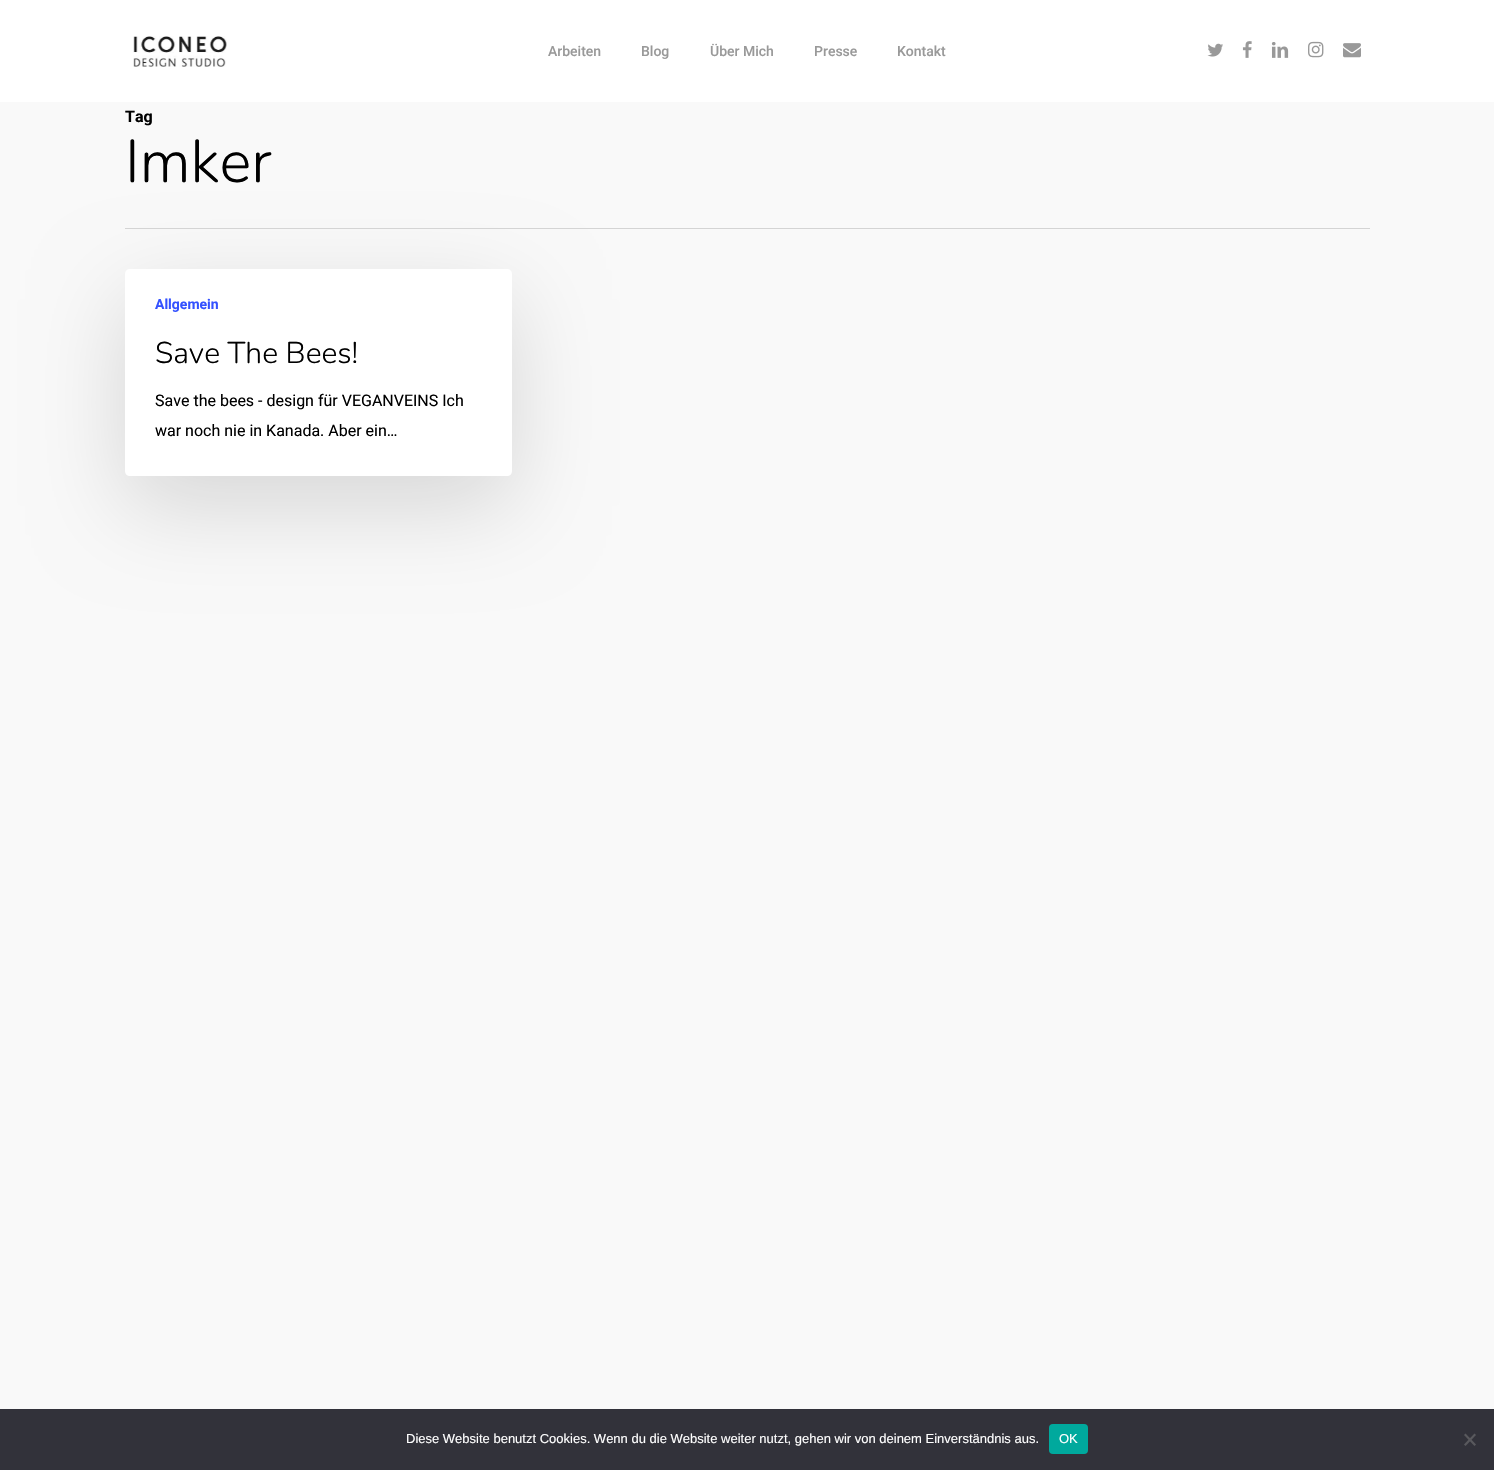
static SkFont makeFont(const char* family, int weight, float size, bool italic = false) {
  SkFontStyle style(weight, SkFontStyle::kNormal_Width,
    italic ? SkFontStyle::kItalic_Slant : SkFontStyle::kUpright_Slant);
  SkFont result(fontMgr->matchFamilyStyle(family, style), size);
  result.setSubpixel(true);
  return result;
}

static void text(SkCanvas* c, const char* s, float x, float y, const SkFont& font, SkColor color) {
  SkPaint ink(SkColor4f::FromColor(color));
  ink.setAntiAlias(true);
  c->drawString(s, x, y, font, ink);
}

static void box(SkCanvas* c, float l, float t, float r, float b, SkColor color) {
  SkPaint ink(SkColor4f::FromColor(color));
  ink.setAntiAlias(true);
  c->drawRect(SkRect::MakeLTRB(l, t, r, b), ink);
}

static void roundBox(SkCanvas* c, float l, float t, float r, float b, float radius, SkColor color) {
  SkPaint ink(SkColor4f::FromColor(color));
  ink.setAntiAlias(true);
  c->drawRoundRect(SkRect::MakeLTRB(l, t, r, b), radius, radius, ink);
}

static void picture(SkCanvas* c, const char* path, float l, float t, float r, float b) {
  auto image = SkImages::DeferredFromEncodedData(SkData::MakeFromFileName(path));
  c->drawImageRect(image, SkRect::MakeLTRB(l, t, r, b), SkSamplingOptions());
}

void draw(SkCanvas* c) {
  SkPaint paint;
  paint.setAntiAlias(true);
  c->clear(0xfff9f9f9);
  box(c, 0, 0, 1494, 102, 0xffffffff);
  picture(c, "img_01.png", 133, 36, 227, 67);
  SkFont face1 = makeFont("Roboto", 500, 14);
  text(c, "Arbeiten", 548, 56, face1, 0xff999999);
  text(c, "Blog", 641, 56, face1, 0xff999999);
  text(c, "Über Mich", 710, 56, face1, 0xff999999);
  text(c, "Presse", 814, 56, face1, 0xff999999);
  text(c, "Kontakt", 897, 56, face1, 0xff999999);
  picture(c, "img_02.png", 1207, 43, 1223, 57);
  picture(c, "img_03.png", 1242, 41, 1252, 58);
  picture(c, "img_04.png", 1271, 42, 1289, 58);
  picture(c, "img_05.png", 1308, 41, 1324, 58);
  picture(c, "img_06.png", 1343, 43, 1361, 58);
  paint.setColor(0x24000000);
  paint.setMaskFilter(SkMaskFilter::MakeBlur(kNormal_SkBlurStyle, 45));
  c->drawRoundRect(SkRect::MakeLTRB(125, 299, 512, 506), 5, 5, paint);
  paint.setMaskFilter(nullptr);
  box(c, 125, 228, 1370, 229, 0xffd4d4d4);
  SkFont face2 = makeFont("Roboto", 700, 16);
  text(c, "Tag", 125, 122, face2, 0xff000000);
  SkFont face3 = makeFont("Nunito", 300, 60);
  text(c, "Imker", 125, 182, face3, 0xff000000);
  paint.setColor(0xffffffff);
  c->drawPath(SkPathBuilder().moveTo(130, 269).lineTo(507, 269).cubicTo(510, 269, 512, 271, 512, 274).lineTo(512, 324).lineTo(125, 324).lineTo(125, 274).cubicTo(125, 271, 127, 269, 130, 269).close().detach(), paint);
  SkFont face4 = makeFont("Roboto", 700, 14);
  text(c, "Allgemein", 155, 309, face4, 0xff3452ff);
  c->drawPath(SkPathBuilder().moveTo(125, 324).lineTo(512, 324).lineTo(512, 471).cubicTo(512, 474, 510, 476, 507, 476).lineTo(130, 476).cubicTo(127, 476, 125, 474, 125, 471).close().detach(), paint);
  SkFont face5 = makeFont("Nunito", 300, 30);
  text(c, "Save The Bees!", 155, 363, face5, 0xff000000);
  SkFont face6 = makeFont("Roboto", 400, 16);
  text(c, "Save the bees - design für VEGANVEINS Ich", 155, 406, face6, 0xff000000);
  text(c, "war noch nie in Kanada. Aber ein…", 155, 436, face6, 0xff000000);
  box(c, 0, 1409, 1494, 1470, 0xff32323a);
  SkFont face7 = makeFont("Liberation Sans", 400, 13);
  text(c, "Diese Website benutzt Cookies. Wenn du die Website weiter nutzt, gehen wir von deinem Einverständnis aus.", 406, 1443, face7, 0xffffffff);
  roundBox(c, 1049, 1424, 1088, 1454, 4, 0xff00a99d);
  text(c, "OK", 1059, 1443, face7, 0xffffffff);
  paint.setColor(0xff59595d);
  c->drawPath(SkPathBuilder().moveTo(1474.5f, 1433.5f).lineTo(1476, 1435).lineTo(1465.5f, 1446).lineTo(1464, 1444.5f).close().detach(), paint);
  c->drawPath(SkPathBuilder().moveTo(1464, 1435).lineTo(1465.5f, 1433.5f).lineTo(1476, 1444.5f).lineTo(1474.5f, 1446).close().detach(), paint);
}
